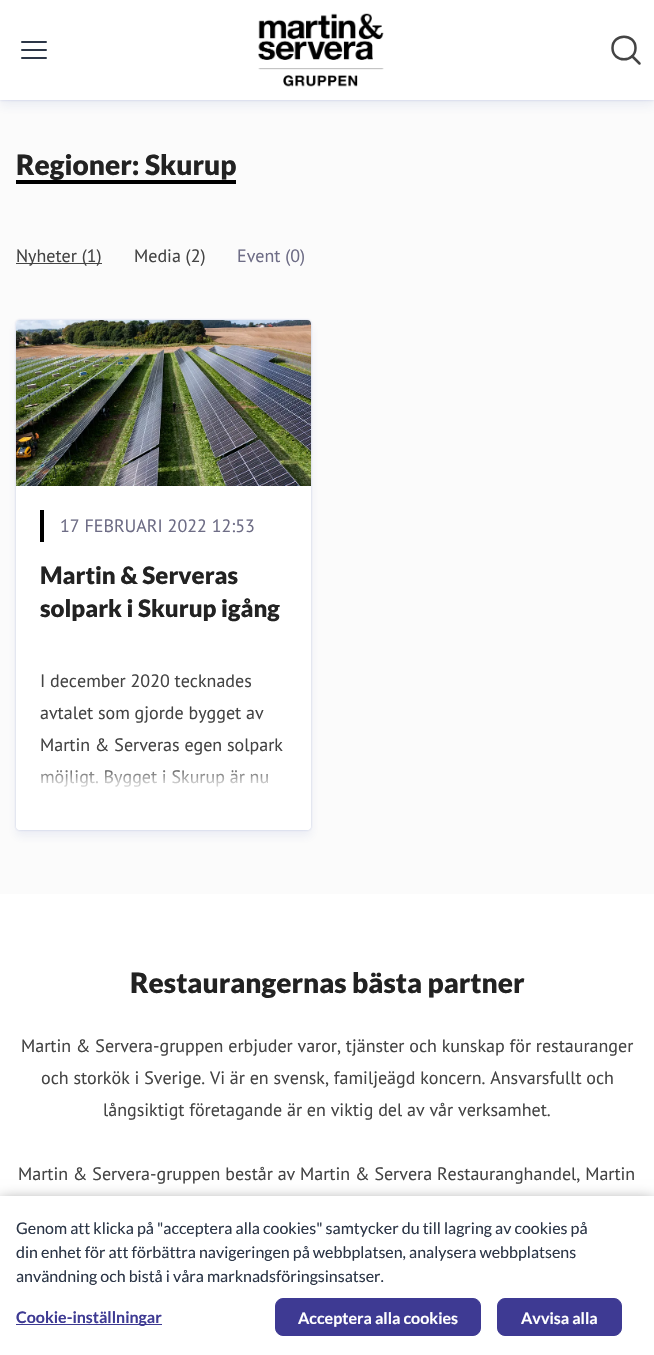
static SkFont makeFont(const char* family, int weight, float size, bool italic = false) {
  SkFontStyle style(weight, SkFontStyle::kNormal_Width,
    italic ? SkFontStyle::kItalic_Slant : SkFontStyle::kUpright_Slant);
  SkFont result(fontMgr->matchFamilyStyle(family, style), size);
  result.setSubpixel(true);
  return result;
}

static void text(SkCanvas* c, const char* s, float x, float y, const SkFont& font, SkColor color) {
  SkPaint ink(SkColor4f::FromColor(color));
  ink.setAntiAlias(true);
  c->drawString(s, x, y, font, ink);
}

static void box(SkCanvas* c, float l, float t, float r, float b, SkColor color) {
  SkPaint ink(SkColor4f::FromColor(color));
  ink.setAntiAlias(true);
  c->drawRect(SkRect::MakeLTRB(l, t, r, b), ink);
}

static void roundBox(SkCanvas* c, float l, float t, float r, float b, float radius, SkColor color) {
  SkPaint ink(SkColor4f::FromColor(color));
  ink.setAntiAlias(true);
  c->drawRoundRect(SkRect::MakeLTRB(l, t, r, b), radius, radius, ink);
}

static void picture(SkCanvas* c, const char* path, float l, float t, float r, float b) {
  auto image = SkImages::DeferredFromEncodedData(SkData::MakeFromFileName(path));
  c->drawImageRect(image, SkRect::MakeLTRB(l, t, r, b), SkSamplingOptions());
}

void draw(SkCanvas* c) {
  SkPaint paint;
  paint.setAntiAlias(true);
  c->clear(0xfffbfbfb);
  paint.setColor(0x243149a4);
  paint.setMaskFilter(SkMaskFilter::MakeBlur(kNormal_SkBlurStyle, 1));
  c->drawRect(SkRect::MakeLTRB(0, 0, 654, 100), paint);
  paint.setMaskFilter(nullptr);
  paint.setColor(0x1a3149a4);
  paint.setMaskFilter(SkMaskFilter::MakeBlur(kNormal_SkBlurStyle, 1.5f));
  c->drawRect(SkRect::MakeLTRB(0, 0, 654, 100), paint);
  paint.setMaskFilter(nullptr);
  paint.setColor(0x143149a4);
  paint.setMaskFilter(SkMaskFilter::MakeBlur(kNormal_SkBlurStyle, 5));
  c->drawRect(SkRect::MakeLTRB(0, 6, 654, 106), paint);
  paint.setMaskFilter(nullptr);
  box(c, 0, 0, 654, 100, 0xffffffff);
  paint.setStyle(SkPaint::kStroke_Style);
  paint.setStrokeWidth(2);
  paint.setStrokeCap(SkPaint::kRound_Cap);
  paint.setStrokeJoin(SkPaint::kRound_Join);
  paint.setColor(0xff2c3647);
  c->drawPath(SkPathBuilder().moveTo(22, 50).lineTo(46, 50).moveTo(22, 42).lineTo(46, 42).moveTo(22, 58).lineTo(46, 58).detach(), paint);
  picture(c, "img_01.png", 258, 13, 384, 87);
  paint.setStrokeWidth(2.5f);
  paint.setStrokeJoin(SkPaint::kMiter_Join);
  paint.setColor(0xff444444);
  c->drawPath(SkPathBuilder().moveTo(635.5f, 48).cubicTo(635.5f, 63, 612.5f, 63, 612.5f, 48).cubicTo(612.5f, 33, 635.5f, 33, 635.5f, 48).close().moveTo(639.5f, 63.5f).lineTo(632, 56).detach(), paint);
  box(c, 16, 180, 236, 184, 0xff000000);
  SkFont face1 = makeFont("Lato", 900, 28);
  text(c, "Regioner: Skurup", 16, 175, face1, 0xff222222);
  box(c, 16, 263, 102, 264, 0xff444444);
  SkFont face2 = makeFont("PT Sans", 400, 18);
  text(c, "Nyheter (1)", 16, 262, face2, 0xff444444);
  text(c, "Media (2)", 134, 262, face2, 0xff444444);
  text(c, "Event (0)", 237, 262, face2, 0xff6e6d86);
  paint.setStyle(SkPaint::kFill_Style);
  paint.setColor(0x243149a4);
  paint.setMaskFilter(SkMaskFilter::MakeBlur(kNormal_SkBlurStyle, 1));
  c->drawRoundRect(SkRect::MakeLTRB(16, 320, 311, 830), 4, 4, paint);
  paint.setMaskFilter(nullptr);
  paint.setColor(0x1a3149a4);
  paint.setMaskFilter(SkMaskFilter::MakeBlur(kNormal_SkBlurStyle, 1.5f));
  c->drawRoundRect(SkRect::MakeLTRB(16, 320, 311, 830), 4, 4, paint);
  paint.setMaskFilter(nullptr);
  paint.setColor(0x143149a4);
  paint.setMaskFilter(SkMaskFilter::MakeBlur(kNormal_SkBlurStyle, 5));
  c->drawRoundRect(SkRect::MakeLTRB(16, 326, 311, 836), 4, 4, paint);
  paint.setMaskFilter(nullptr);
  roundBox(c, 16, 320, 311, 830, 4, 0xffffffff);
  picture(c, "img_02.png", 16, 320, 311, 324);
  picture(c, "img_03.png", 16, 320, 311, 486);
  box(c, 40, 510, 44, 542, 0xff000000);
  text(c, "17 FEBRUARI 2022 12:53", 60, 532, face2, 0xff6e6d86);
  SkFont face3 = makeFont("Lato", 900, 24);
  text(c, "Martin & Serveras", 40, 584, face3, 0xff222222);
  text(c, "solpark i Skurup igång", 40, 617, face3, 0xff222222);
  text(c, "I december 2020 tecknades", 40, 687, face2, 0xff444444);
  text(c, "avtalet som gjorde bygget av", 40, 719, face2, 0xff444444);
  text(c, "Martin & Serveras egen solpark", 40, 751, face2, 0xff444444);
  text(c, "möjligt. Bygget i Skurup är nu", 40, 783, face2, 0xff444444);
  {
    const SkColor colors[] = {0x00ffffff, 0xb3ffffff, 0xffffffff};
    const float stops[] = {0, 0.25f, 0.5f};
    const SkPoint ends[] = {{164, 766}, {164, 830}};
    paint.setShader(SkGradientShader::MakeLinear(ends, colors, stops, 3, SkTileMode::kClamp));
    paint.setAlpha(255);
  }
  c->drawPath(SkPathBuilder().moveTo(16, 766).lineTo(311, 766).lineTo(311, 826).cubicTo(311, 828, 309, 830, 307, 830).lineTo(20, 830).cubicTo(18, 830, 16, 828, 16, 826).close().detach(), paint);
  box(c, 0, 894, 654, 1196, 0xffffffff);
  text(c, "Restaurangernas bästa partner", 130, 993, face1, 0xff222222);
  text(c, "Martin & Servera-gruppen erbjuder varor, tjänster och kunskap för restauranger", 21, 1052, face2, 0xff444444);
  text(c, "och storkök i Sverige. Vi är en svensk, familjeägd koncern. Ansvarsfullt och", 41, 1084, face2, 0xff444444);
  text(c, "långsiktigt företagande är en viktig del av vår verksamhet.", 103, 1116, face2, 0xff444444);
  text(c, "Martin & Servera-gruppen består av Martin & Servera Restauranghandel, Martin", 18, 1180, face2, 0xff444444);
  paint.setShader(nullptr);
  paint.setColor(0x80000000);
  paint.setMaskFilter(SkMaskFilter::MakeBlur(kNormal_SkBlurStyle, 7.5f));
  c->drawRect(SkRect::MakeLTRB(0, 1201, 654, 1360), paint);
  paint.setMaskFilter(nullptr);
  box(c, 0, 1196, 654, 1355, 0xffffffff);
  SkFont face4 = makeFont("Lato", 400, 16);
  text(c, "Genom att klicka på \"acceptera alla cookies\" samtycker du till lagring av cookies på", 16, 1234, face4, 0xff2c3647);
  text(c, "din enhet för att förbättra navigeringen på webbplatsen, analysera webbplatsens", 16, 1258, face4, 0xff2c3647);
  text(c, "användning och bistå i våra marknadsföringsinsatser.", 16, 1282, face4, 0xff2c3647);
  box(c, 16, 1324, 162, 1325, 0xff3e3a93);
  SkFont face5 = makeFont("Lato", 700, 16);
  text(c, "Cookie-inställningar", 16, 1323, face5, 0xff3e3a93);
  paint.setColor(0xff3e3a93);
  c->drawRoundRect(SkRect::MakeLTRB(275.5f, 1298.5f, 480.5f, 1335.5f), 7.5f, 7.5f, paint);
  paint.setStyle(SkPaint::kStroke_Style);
  paint.setStrokeWidth(1);
  paint.setStrokeCap(SkPaint::kButt_Cap);
  c->drawRoundRect(SkRect::MakeLTRB(275.5f, 1298.5f, 480.5f, 1335.5f), 7.5f, 7.5f, paint);
  text(c, "Acceptera alla cookies", 298, 1324, face5, 0xffffffff);
  paint.setStyle(SkPaint::kFill_Style);
  c->drawRoundRect(SkRect::MakeLTRB(497.5f, 1298.5f, 621.5f, 1335.5f), 7.5f, 7.5f, paint);
  paint.setStyle(SkPaint::kStroke_Style);
  c->drawRoundRect(SkRect::MakeLTRB(497.5f, 1298.5f, 621.5f, 1335.5f), 7.5f, 7.5f, paint);
  text(c, "Avvisa alla", 521, 1324, face5, 0xffffffff);
}
